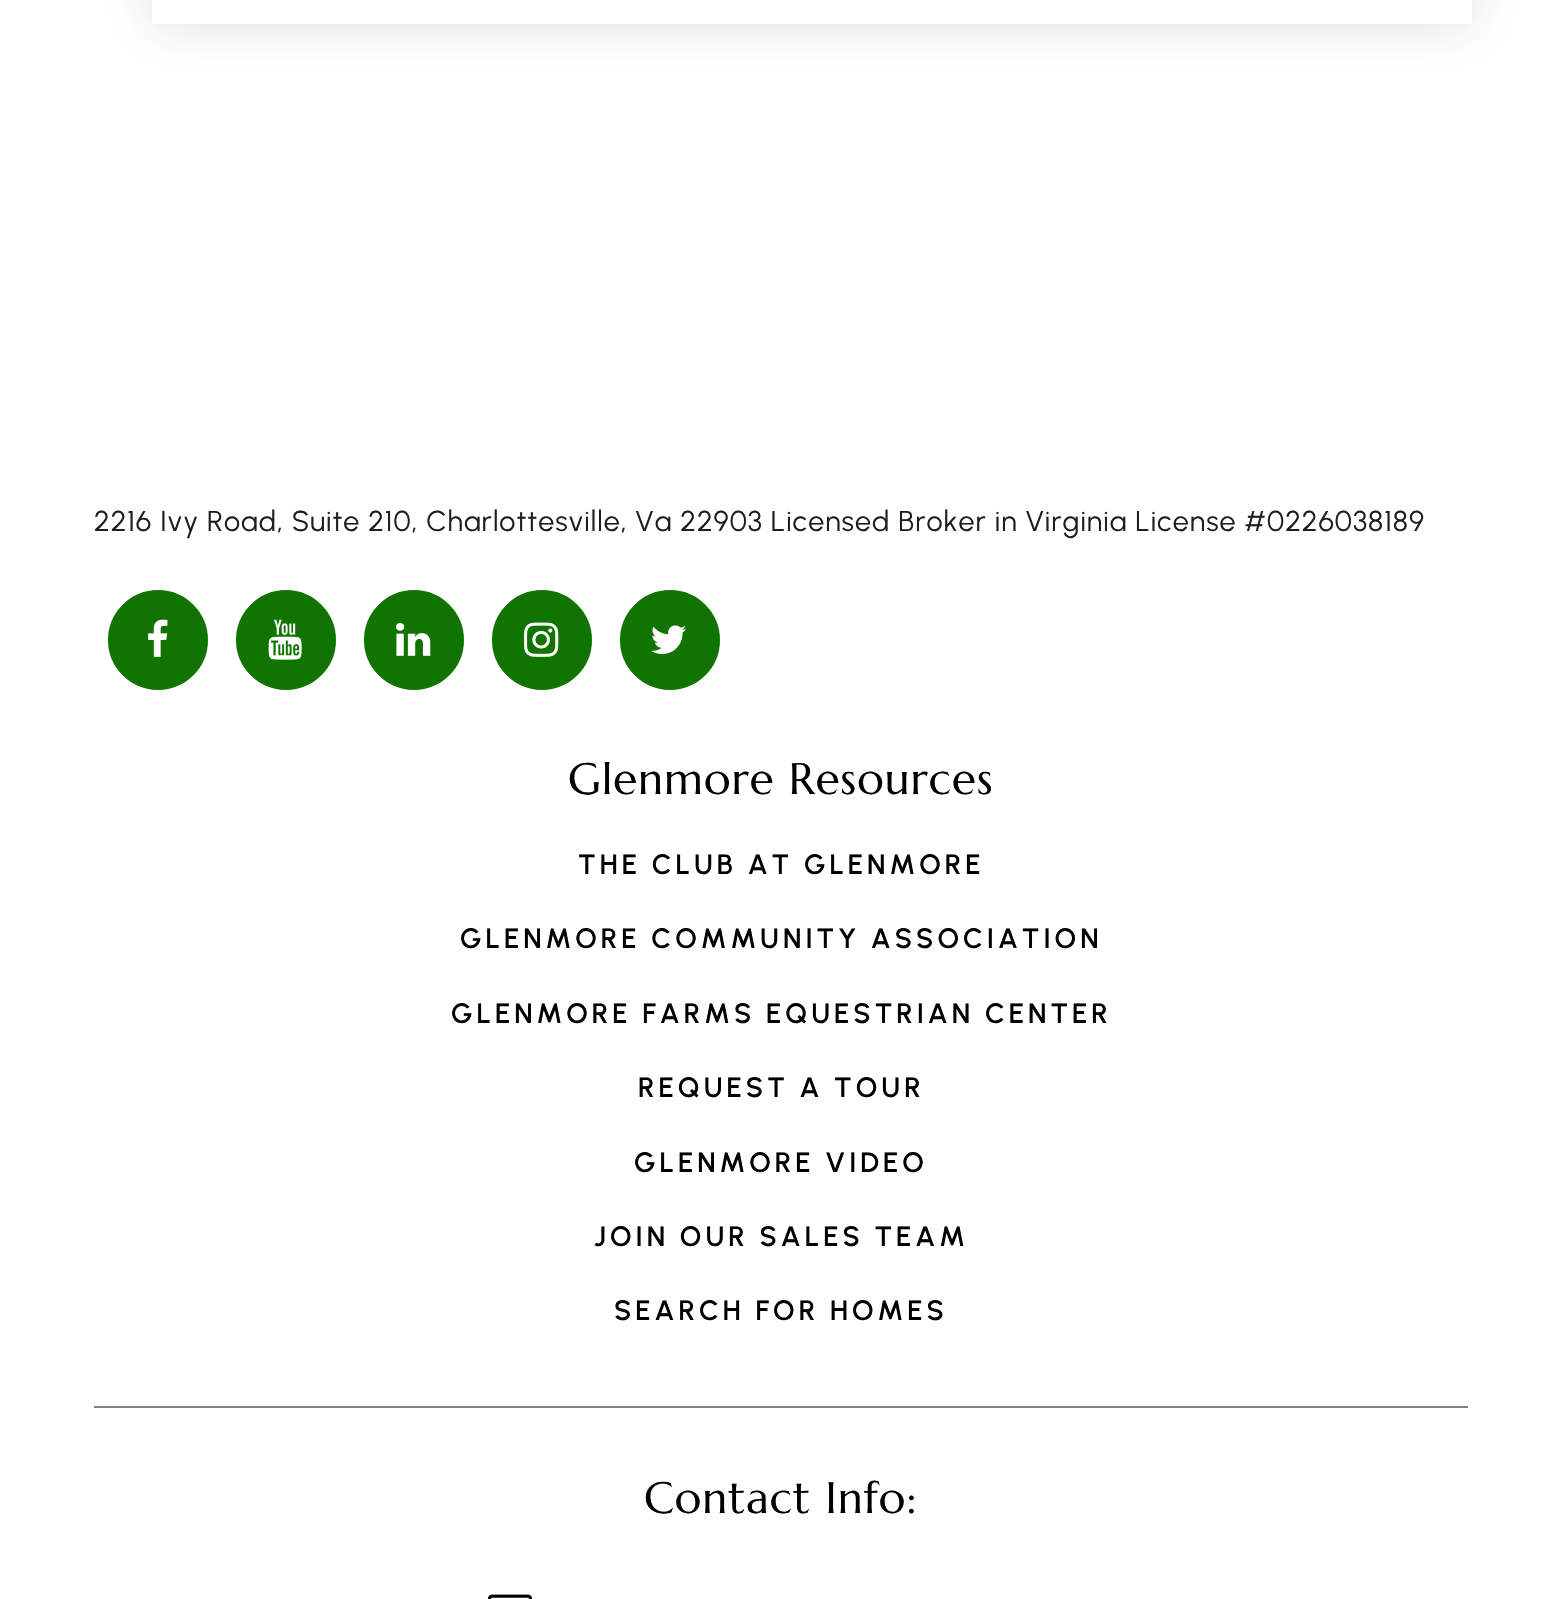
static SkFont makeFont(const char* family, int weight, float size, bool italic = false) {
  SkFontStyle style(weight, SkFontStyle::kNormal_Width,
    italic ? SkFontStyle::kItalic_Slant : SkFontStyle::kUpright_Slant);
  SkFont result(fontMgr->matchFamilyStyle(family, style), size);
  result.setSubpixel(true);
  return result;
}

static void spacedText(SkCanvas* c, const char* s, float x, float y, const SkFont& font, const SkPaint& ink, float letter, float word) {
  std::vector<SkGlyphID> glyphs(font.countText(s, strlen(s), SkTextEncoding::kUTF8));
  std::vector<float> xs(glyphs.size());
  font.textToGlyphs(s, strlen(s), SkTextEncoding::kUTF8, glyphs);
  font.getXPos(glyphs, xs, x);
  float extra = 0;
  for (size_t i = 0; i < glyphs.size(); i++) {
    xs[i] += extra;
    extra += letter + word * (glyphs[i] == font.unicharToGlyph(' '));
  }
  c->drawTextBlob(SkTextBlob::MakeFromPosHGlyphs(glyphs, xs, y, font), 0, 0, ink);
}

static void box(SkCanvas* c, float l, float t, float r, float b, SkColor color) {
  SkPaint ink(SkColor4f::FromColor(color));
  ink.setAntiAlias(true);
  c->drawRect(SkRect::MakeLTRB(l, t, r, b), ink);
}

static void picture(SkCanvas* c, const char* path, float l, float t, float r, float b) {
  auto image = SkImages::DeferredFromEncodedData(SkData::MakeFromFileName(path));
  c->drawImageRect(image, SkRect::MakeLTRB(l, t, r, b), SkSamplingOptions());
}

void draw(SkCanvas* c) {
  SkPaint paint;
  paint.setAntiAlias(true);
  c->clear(0xffffffff);
  c->save();
  c->clipPath(SkPathBuilder(SkPathFillType::kEvenOdd).moveTo(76, 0).lineTo(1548, 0).lineTo(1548, 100).lineTo(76, 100).close().moveTo(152, -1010).lineTo(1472, -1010).lineTo(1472, 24).lineTo(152, 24).close().detach(), true);
  paint.setColor(0x26292b2c);
  paint.setMaskFilter(SkMaskFilter::MakeBlur(kNormal_SkBlurStyle, 25));
  c->drawRect(SkRect::MakeLTRB(152, -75, 1472, 24), paint);
  paint.setMaskFilter(nullptr);
  c->restore();
  SkFont face1 = makeFont("Urbanist", 400, 28.7f);
  paint.setColor(0xff1e1e1e);
  spacedText(c, "2216 Ivy Road, Suite 210, Charlottesville, Va 22903 Licensed Broker in Virginia License #0226038189", 94, 531, face1, paint, 1, 0);
  paint.setColor(0xff117300);
  c->drawCircle(158, 640, 49, paint);
  paint.setStyle(SkPaint::kStroke_Style);
  paint.setStrokeWidth(2);
  c->drawCircle(158, 640, 49, paint);
  picture(c, "img_01.png", 148, 619, 168, 657);
  paint.setStyle(SkPaint::kFill_Style);
  c->drawCircle(286, 640, 49, paint);
  paint.setStyle(SkPaint::kStroke_Style);
  c->drawCircle(286, 640, 49, paint);
  picture(c, "img_02.png", 268, 619, 302, 660);
  paint.setStyle(SkPaint::kFill_Style);
  c->drawCircle(414, 640, 49, paint);
  paint.setStyle(SkPaint::kStroke_Style);
  c->drawCircle(414, 640, 49, paint);
  picture(c, "img_03.png", 396, 623, 431, 656);
  paint.setStyle(SkPaint::kFill_Style);
  c->drawCircle(542, 640, 49, paint);
  paint.setStyle(SkPaint::kStroke_Style);
  c->drawCircle(542, 640, 49, paint);
  picture(c, "img_04.png", 524, 622, 559, 657);
  paint.setStyle(SkPaint::kFill_Style);
  c->drawCircle(670, 640, 49, paint);
  paint.setStyle(SkPaint::kStroke_Style);
  c->drawCircle(670, 640, 49, paint);
  picture(c, "img_05.png", 651, 625, 686, 654);
  SkFont face2 = makeFont("Marcellus", 400, 44);
  paint.setStyle(SkPaint::kFill_Style);
  paint.setColor(0xff000000);
  spacedText(c, "Glenmore Resources", 568, 794, face2, paint, 1, 0);
  SkFont face3 = makeFont("Urbanist", 600, 28);
  spacedText(c, "THE CLUB AT GLENMORE", 578, 874, face3, paint, 4, 0);
  spacedText(c, "GLENMORE COMMUNITY ASSOCIATION", 460, 948, face3, paint, 4, 0);
  spacedText(c, "GLENMORE FARMS EQUESTRIAN CENTER", 451, 1023, face3, paint, 4, 0);
  spacedText(c, "REQUEST A TOUR", 638, 1097, face3, paint, 4, 0);
  spacedText(c, "GLENMORE VIDEO", 634, 1172, face3, paint, 4, 0);
  spacedText(c, "JOIN OUR SALES TEAM", 594, 1246, face3, paint, 4, 0);
  spacedText(c, "SEARCH FOR HOMES", 614, 1320, face3, paint, 4, 0);
  box(c, 94, 1406, 1468, 1408, 0xff808080);
  spacedText(c, "Contact Info:", 644, 1513, face2, paint, 1, 0);
  picture(c, "img_06.png", 488, 1594, 532, 1599);
}
